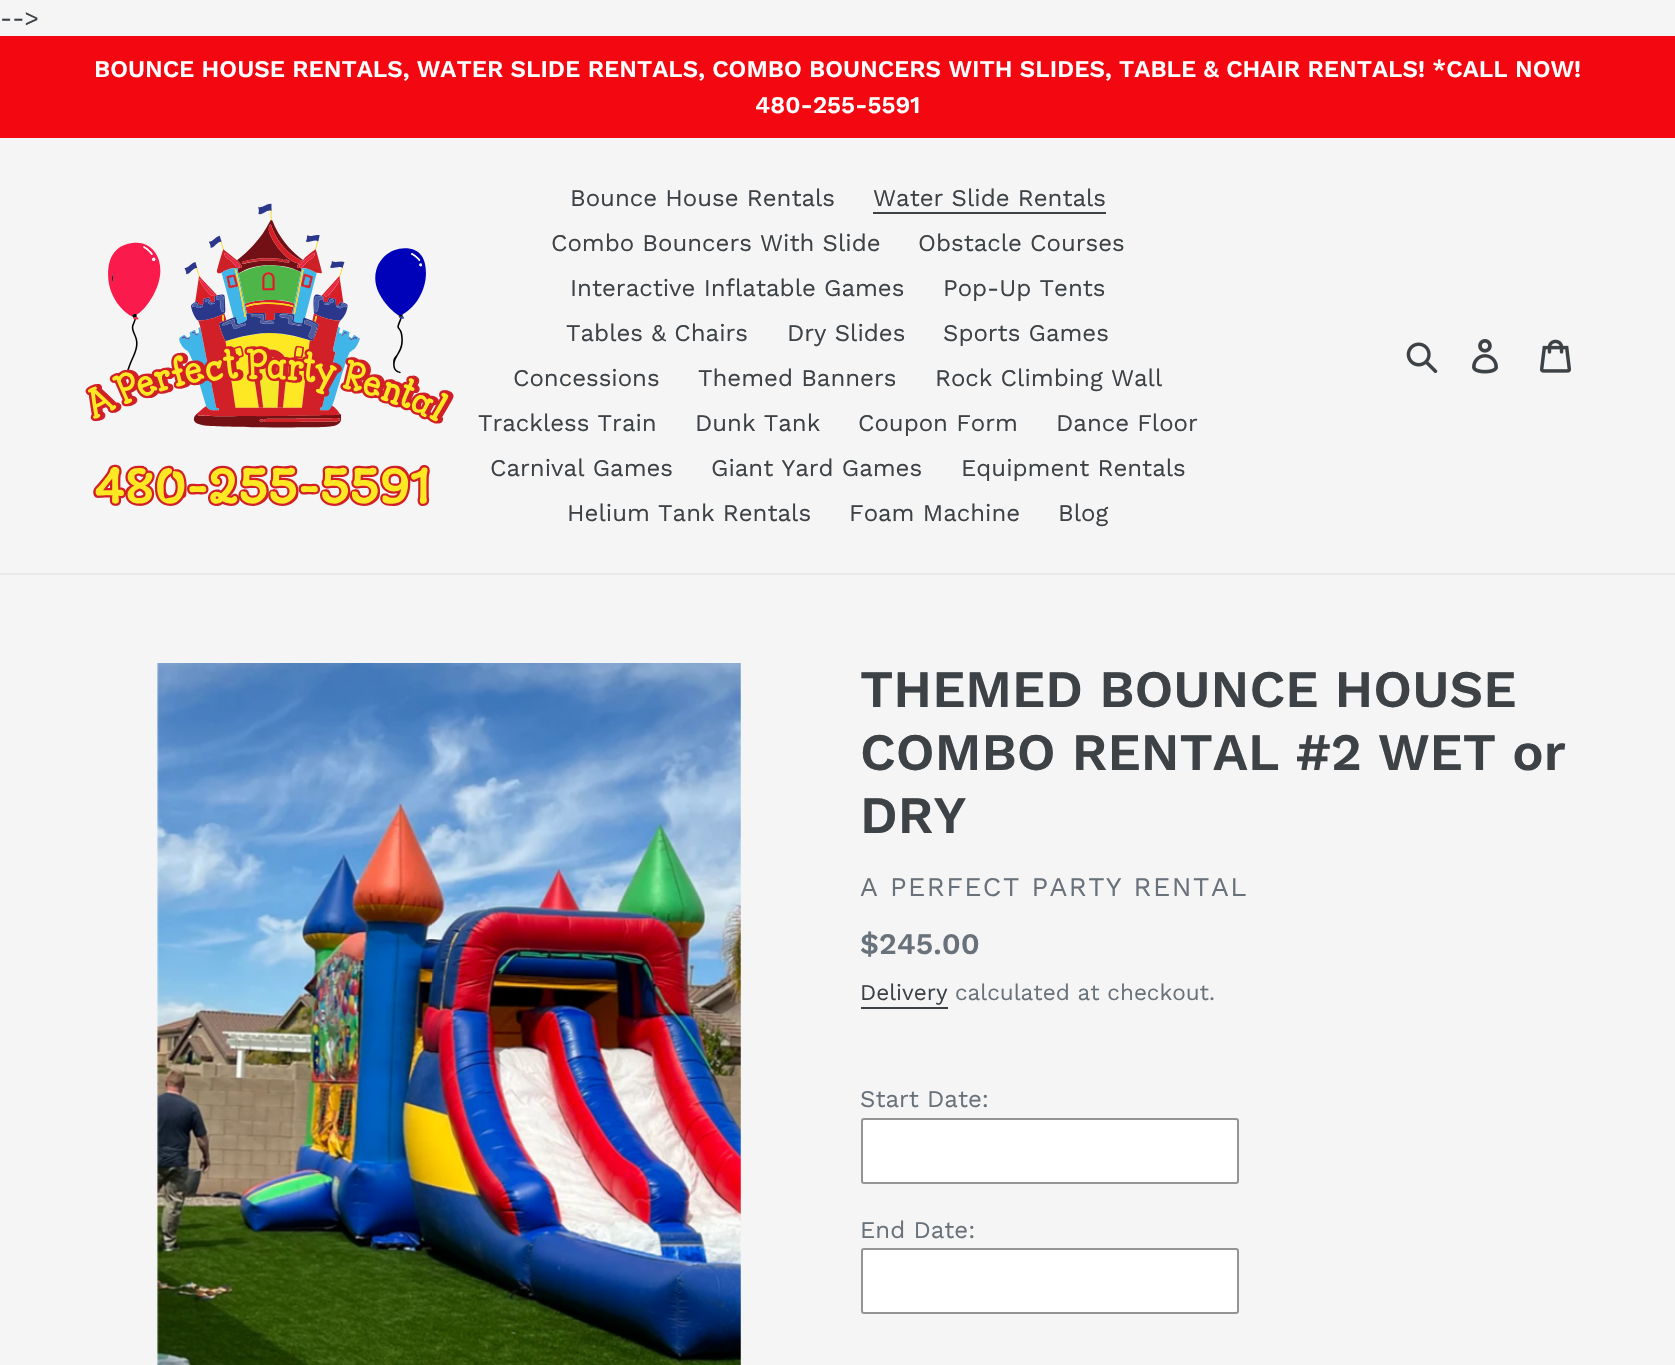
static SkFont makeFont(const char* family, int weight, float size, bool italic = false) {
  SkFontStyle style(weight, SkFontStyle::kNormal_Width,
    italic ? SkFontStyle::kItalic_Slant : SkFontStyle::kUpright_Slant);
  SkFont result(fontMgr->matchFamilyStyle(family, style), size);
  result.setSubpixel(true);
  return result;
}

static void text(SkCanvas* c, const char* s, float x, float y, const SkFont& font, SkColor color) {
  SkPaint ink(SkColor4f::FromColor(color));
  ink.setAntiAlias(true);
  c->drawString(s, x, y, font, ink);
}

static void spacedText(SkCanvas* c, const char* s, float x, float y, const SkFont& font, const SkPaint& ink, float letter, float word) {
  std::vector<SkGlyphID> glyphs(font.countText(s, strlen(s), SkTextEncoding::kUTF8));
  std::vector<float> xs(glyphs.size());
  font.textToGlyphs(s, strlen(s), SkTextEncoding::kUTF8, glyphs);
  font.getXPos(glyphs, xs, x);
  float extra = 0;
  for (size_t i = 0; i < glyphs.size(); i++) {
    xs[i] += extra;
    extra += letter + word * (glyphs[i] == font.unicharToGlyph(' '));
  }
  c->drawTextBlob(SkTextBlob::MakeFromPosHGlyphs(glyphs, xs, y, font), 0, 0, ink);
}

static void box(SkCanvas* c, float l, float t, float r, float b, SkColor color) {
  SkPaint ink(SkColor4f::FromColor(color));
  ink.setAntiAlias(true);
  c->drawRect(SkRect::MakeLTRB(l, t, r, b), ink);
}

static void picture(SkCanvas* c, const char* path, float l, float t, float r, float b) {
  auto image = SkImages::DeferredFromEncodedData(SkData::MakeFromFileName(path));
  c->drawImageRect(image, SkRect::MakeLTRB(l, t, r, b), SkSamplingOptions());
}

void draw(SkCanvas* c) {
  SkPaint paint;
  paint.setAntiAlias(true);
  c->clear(0xfff5f5f5);
  SkFont face1 = makeFont("Work Sans", 400, 24);
  text(c, "-->", 0, 26, face1, 0xff3d4246);
  box(c, 0, 36, 1675, 138, 0xfff30711);
  SkFont face2 = makeFont("Work Sans", 600, 24);
  text(c, "BOUNCE HOUSE RENTALS, WATER SLIDE RENTALS, COMBO BOUNCERS WITH SLIDES, TABLE & CHAIR RENTALS! *CALL NOW!", 94, 77, face2, 0xffffffff);
  text(c, "480-255-5591", 755, 113, face2, 0xffffffff);
  box(c, 0, 573, 1675, 575, 0xffe8e9eb);
  picture(c, "img_01.png", 85, 203, 454, 506);
  text(c, "Bounce House Rentals", 570, 206, face1, 0xff3d4246);
  text(c, "Water Slide Rentals", 873, 206, face1, 0xff3d4246);
  box(c, 873, 212, 1106, 214, 0xff3d4246);
  text(c, "Combo Bouncers With Slide", 551, 251, face1, 0xff3d4246);
  text(c, "Obstacle Courses", 918, 251, face1, 0xff3d4246);
  text(c, "Interactive Inflatable Games", 570, 296, face1, 0xff3d4246);
  text(c, "Pop-Up Tents", 943, 296, face1, 0xff3d4246);
  text(c, "Tables & Chairs", 566, 341, face1, 0xff3d4246);
  text(c, "Dry Slides", 787, 341, face1, 0xff3d4246);
  text(c, "Sports Games", 943, 341, face1, 0xff3d4246);
  text(c, "Concessions", 513, 386, face1, 0xff3d4246);
  text(c, "Themed Banners", 698, 386, face1, 0xff3d4246);
  text(c, "Rock Climbing Wall", 935, 386, face1, 0xff3d4246);
  text(c, "Trackless Train", 478, 431, face1, 0xff3d4246);
  text(c, "Dunk Tank", 695, 431, face1, 0xff3d4246);
  text(c, "Coupon Form", 858, 431, face1, 0xff3d4246);
  text(c, "Dance Floor", 1056, 431, face1, 0xff3d4246);
  text(c, "Carnival Games", 490, 476, face1, 0xff3d4246);
  text(c, "Giant Yard Games", 711, 476, face1, 0xff3d4246);
  text(c, "Equipment Rentals", 961, 476, face1, 0xff3d4246);
  text(c, "Helium Tank Rentals", 567, 521, face1, 0xff3d4246);
  text(c, "Foam Machine", 849, 521, face1, 0xff3d4246);
  text(c, "Blog", 1058, 521, face1, 0xff3d4246);
  picture(c, "img_02.png", 1406, 342, 1438, 374);
  picture(c, "img_03.png", 1472, 339, 1498, 374);
  picture(c, "img_04.png", 1539, 339, 1571, 373);
  picture(c, "img_05.png", 157, 663, 741, 1365);
  SkFont face3 = makeFont("Work Sans", 600, 52.5f);
  text(c, "THEMED BOUNCE HOUSE", 860, 707, face3, 0xff3d4246);
  text(c, "COMBO RENTAL #2 WET or", 860, 770, face3, 0xff3d4246);
  text(c, "DRY", 860, 833, face3, 0xff3d4246);
  SkFont face4 = makeFont("Work Sans", 400, 27);
  paint.setColor(0xff69727b);
  spacedText(c, "A PERFECT PARTY RENTAL", 860, 896, face4, paint, 1.5f, 0);
  SkFont face5 = makeFont("Work Sans", 600, 30);
  text(c, "$245.00", 860, 954, face5, 0xff69727b);
  SkFont face6 = makeFont("Work Sans", 400, 22.5f);
  text(c, "Delivery", 860, 1000, face6, 0xff3d4246);
  box(c, 861, 1007, 948, 1009, 0xff3d4246);
  text(c, "calculated at checkout.", 955, 1000, face6, 0xff69727b);
  text(c, "Start Date:", 860, 1107, face1, 0xff69727b);
  paint.setColor(0xffffffff);
  c->drawRoundRect(SkRect::MakeLTRB(862, 1119, 1238, 1183), 2, 2, paint);
  paint.setStyle(SkPaint::kStroke_Style);
  paint.setStrokeWidth(2);
  paint.setColor(0xff949494);
  c->drawRoundRect(SkRect::MakeLTRB(862, 1119, 1238, 1183), 2, 2, paint);
  text(c, "End Date:", 860, 1238, face1, 0xff69727b);
  paint.setStyle(SkPaint::kFill_Style);
  paint.setColor(0xffffffff);
  c->drawRoundRect(SkRect::MakeLTRB(862, 1249, 1238, 1313), 2, 2, paint);
  paint.setStyle(SkPaint::kStroke_Style);
  paint.setColor(0xff949494);
  c->drawRoundRect(SkRect::MakeLTRB(862, 1249, 1238, 1313), 2, 2, paint);
}
